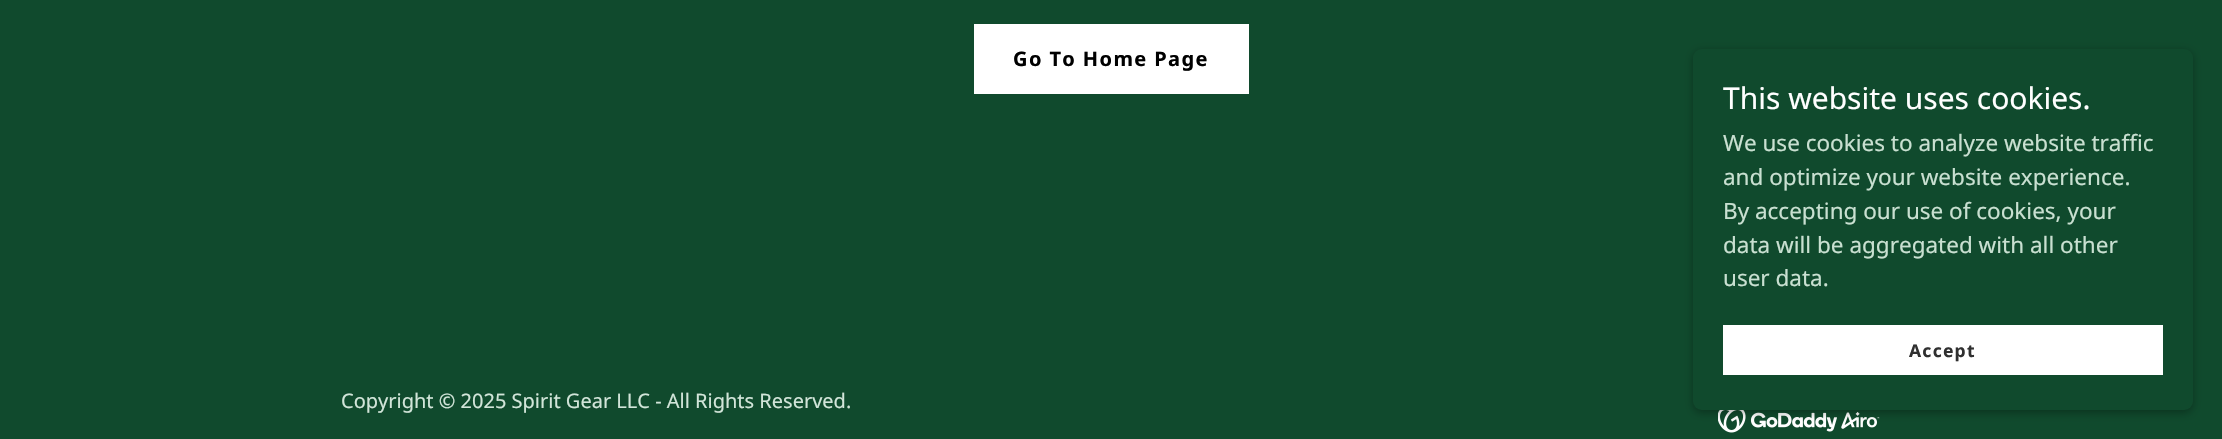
static SkFont makeFont(const char* family, int weight, float size, bool italic = false) {
  SkFontStyle style(weight, SkFontStyle::kNormal_Width,
    italic ? SkFontStyle::kItalic_Slant : SkFontStyle::kUpright_Slant);
  SkFont result(fontMgr->matchFamilyStyle(family, style), size);
  result.setSubpixel(true);
  return result;
}

static void text(SkCanvas* c, const char* s, float x, float y, const SkFont& font, SkColor color) {
  SkPaint ink(SkColor4f::FromColor(color));
  ink.setAntiAlias(true);
  c->drawString(s, x, y, font, ink);
}

static void spacedText(SkCanvas* c, const char* s, float x, float y, const SkFont& font, const SkPaint& ink, float letter, float word) {
  std::vector<SkGlyphID> glyphs(font.countText(s, strlen(s), SkTextEncoding::kUTF8));
  std::vector<float> xs(glyphs.size());
  font.textToGlyphs(s, strlen(s), SkTextEncoding::kUTF8, glyphs);
  font.getXPos(glyphs, xs, x);
  float extra = 0;
  for (size_t i = 0; i < glyphs.size(); i++) {
    xs[i] += extra;
    extra += letter + word * (glyphs[i] == font.unicharToGlyph(' '));
  }
  c->drawTextBlob(SkTextBlob::MakeFromPosHGlyphs(glyphs, xs, y, font), 0, 0, ink);
}

static void box(SkCanvas* c, float l, float t, float r, float b, SkColor color) {
  SkPaint ink(SkColor4f::FromColor(color));
  ink.setAntiAlias(true);
  c->drawRect(SkRect::MakeLTRB(l, t, r, b), ink);
}

static void roundBox(SkCanvas* c, float l, float t, float r, float b, float radius, SkColor color) {
  SkPaint ink(SkColor4f::FromColor(color));
  ink.setAntiAlias(true);
  c->drawRoundRect(SkRect::MakeLTRB(l, t, r, b), radius, radius, ink);
}

static void picture(SkCanvas* c, const char* path, float l, float t, float r, float b) {
  auto image = SkImages::DeferredFromEncodedData(SkData::MakeFromFileName(path));
  c->drawImageRect(image, SkRect::MakeLTRB(l, t, r, b), SkSamplingOptions());
}

void draw(SkCanvas* c) {
  SkPaint paint;
  paint.setAntiAlias(true);
  c->clear(0xff104a2d);
  box(c, 974, 24, 1249, 94, 0xffffffff);
  SkFont face1 = makeFont("Noto Sans", 700, 20);
  paint.setColor(0xff000000);
  spacedText(c, "Go To Home Page", 1013, 66, face1, paint, 1.4f, 0);
  picture(c, "img_01.png", 1718, 410, 1880, 433);
  paint.setColor(0x4d000000);
  paint.setMaskFilter(SkMaskFilter::MakeBlur(kNormal_SkBlurStyle, 4));
  c->drawRoundRect(SkRect::MakeLTRB(1693, 51, 2193, 413), 9, 9, paint);
  paint.setMaskFilter(nullptr);
  roundBox(c, 1693, 49, 2193, 410, 9, 0xff104a2d);
  SkFont face2 = makeFont("Noto Sans", 400, 30);
  text(c, "This website uses cookies.", 1723, 109, face2, 0xffffffff);
  SkFont face3 = makeFont("Noto Sans", 400, 22.5f);
  text(c, "We use cookies to analyze website traffic", 1723, 151, face3, 0xffc9e0d1);
  text(c, "and optimize your website experience.", 1723, 185, face3, 0xffc9e0d1);
  text(c, "By accepting our use of cookies, your", 1723, 219, face3, 0xffc9e0d1);
  text(c, "data will be aggregated with all other", 1723, 253, face3, 0xffc9e0d1);
  text(c, "user data.", 1723, 286, face3, 0xffc9e0d1);
  box(c, 1723, 325, 2163, 375, 0xffffffff);
  SkFont face4 = makeFont("Noto Sans", 700, 17.5f);
  paint.setColor(0xff303030);
  spacedText(c, "Accept", 1909, 357, face4, paint, 1.25f, 0);
  SkFont face5 = makeFont("Noto Sans", 400, 20);
  text(c, "Copyright © 2025 Spirit Gear LLC - All Rights Reserved.", 341, 408, face5, 0xffd2e5d9);
}
